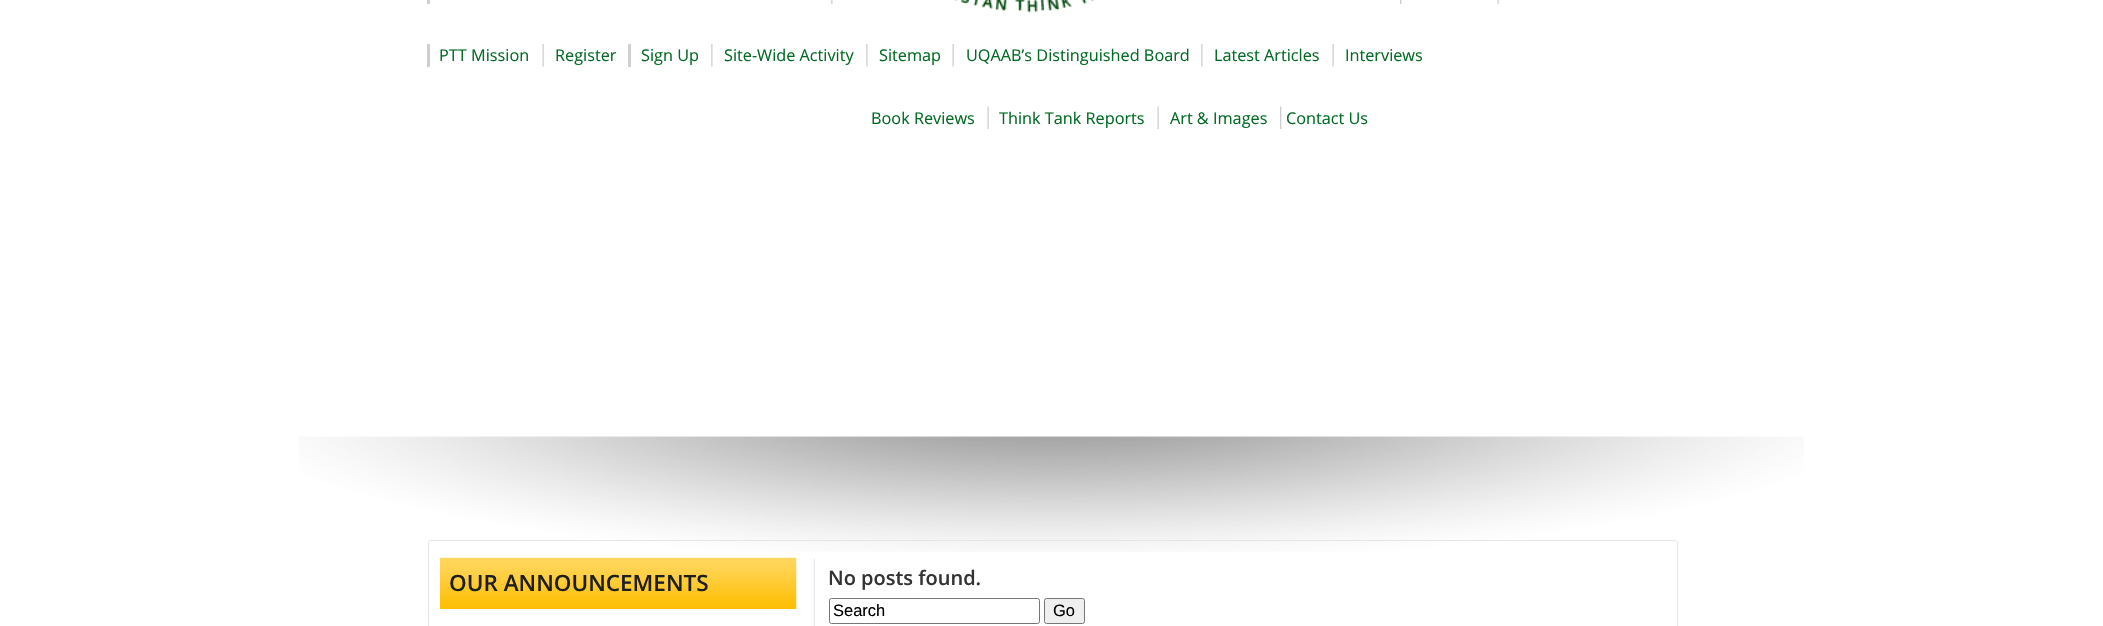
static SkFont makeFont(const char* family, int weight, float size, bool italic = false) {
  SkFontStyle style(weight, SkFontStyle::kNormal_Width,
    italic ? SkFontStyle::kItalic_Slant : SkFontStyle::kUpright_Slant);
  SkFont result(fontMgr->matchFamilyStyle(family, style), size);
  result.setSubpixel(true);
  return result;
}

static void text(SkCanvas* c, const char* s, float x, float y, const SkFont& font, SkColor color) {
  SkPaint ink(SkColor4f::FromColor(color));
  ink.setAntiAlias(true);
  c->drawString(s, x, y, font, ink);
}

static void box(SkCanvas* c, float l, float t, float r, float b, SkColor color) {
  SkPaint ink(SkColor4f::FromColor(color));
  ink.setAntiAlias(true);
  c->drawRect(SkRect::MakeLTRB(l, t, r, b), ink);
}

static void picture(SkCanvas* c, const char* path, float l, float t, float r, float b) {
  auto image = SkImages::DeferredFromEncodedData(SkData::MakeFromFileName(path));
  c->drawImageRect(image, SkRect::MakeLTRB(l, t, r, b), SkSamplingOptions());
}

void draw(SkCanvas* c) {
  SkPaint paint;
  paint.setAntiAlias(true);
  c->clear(0xffffffff);
  picture(c, "img_01.png", 955, 0, 1094, 13);
  box(c, 427, 0, 430, 4, 0xffcecece);
  picture(c, "img_02.png", 831, 0, 833, 4);
  picture(c, "img_03.png", 1400, 0, 1402, 4);
  picture(c, "img_04.png", 1497, 0, 1499, 4);
  box(c, 427, 44, 430, 67, 0xffcecece);
  SkFont face1 = makeFont("Open Sans", 400, 16.25f);
  text(c, "PTT Mission", 439, 61, face1, 0xff016b23);
  picture(c, "img_05.png", 542, 44, 544, 67);
  text(c, "Register", 555, 61, face1, 0xff016b23);
  box(c, 628, 44, 631, 67, 0xffd1d1d1);
  text(c, "Sign Up", 641, 61, face1, 0xff016b23);
  picture(c, "img_06.png", 711, 44, 713, 67);
  text(c, "Site-Wide Activity", 724, 61, face1, 0xff016b23);
  picture(c, "img_06.png", 866, 44, 868, 67);
  text(c, "Sitemap", 879, 61, face1, 0xff016b23);
  picture(c, "img_05.png", 952, 44, 954, 67);
  text(c, "UQAAB’s Distinguished Board", 966, 61, face1, 0xff016b23);
  picture(c, "img_06.png", 1201, 44, 1203, 67);
  text(c, "Latest Articles", 1214, 61, face1, 0xff016b23);
  picture(c, "img_05.png", 1332, 44, 1334, 67);
  text(c, "Interviews", 1345, 61, face1, 0xff016b23);
  text(c, "Book Reviews", 871, 124, face1, 0xff016b23);
  picture(c, "img_07.png", 987, 106, 989, 129);
  text(c, "Think Tank Reports", 999, 124, face1, 0xff016b23);
  picture(c, "img_07.png", 1157, 106, 1159, 129);
  text(c, "Art & Images", 1170, 124, face1, 0xff016b23);
  picture(c, "img_08.png", 1280, 106, 1282, 129);
  text(c, "Contact Us", 1286, 124, face1, 0xff016b23);
  picture(c, "img_09.png", 299, 436, 1804, 552);
  paint.setStyle(SkPaint::kStroke_Style);
  paint.setStrokeWidth(1);
  paint.setColor(0xffe5e5e5);
  c->drawRoundRect(SkRect::MakeLTRB(428.5f, 540.5f, 1677.5f, 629.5f), 2, 2, paint);
  picture(c, "img_10.png", 813, 558, 815, 626);
  picture(c, "img_11.png", 440, 557, 797, 609);
  SkFont face2 = makeFont("Open Sans", 600, 22.5f);
  text(c, "OUR ANNOUNCEMENTS", 449, 591, face2, 0xff1e1e1e);
  SkFont face3 = makeFont("Open Sans", 600, 20);
  text(c, "No posts found.", 828, 585, face3, 0xff333333);
  paint.setColor(0xff767676);
  c->drawRoundRect(SkRect::MakeLTRB(829.5f, 598.5f, 1039.5f, 623.5f), 2, 2, paint);
  SkFont face4 = makeFont("Liberation Sans", 400, 16.5f);
  text(c, "Search", 833, 616, face4, 0xff000000);
  paint.setStyle(SkPaint::kFill_Style);
  paint.setColor(0xffefefef);
  c->drawRoundRect(SkRect::MakeLTRB(1044.5f, 598.5f, 1084.5f, 623.5f), 2, 2, paint);
  paint.setStyle(SkPaint::kStroke_Style);
  paint.setColor(0xff767676);
  c->drawRoundRect(SkRect::MakeLTRB(1044.5f, 598.5f, 1084.5f, 623.5f), 2, 2, paint);
  text(c, "Go", 1053, 616, face4, 0xff000000);
}
